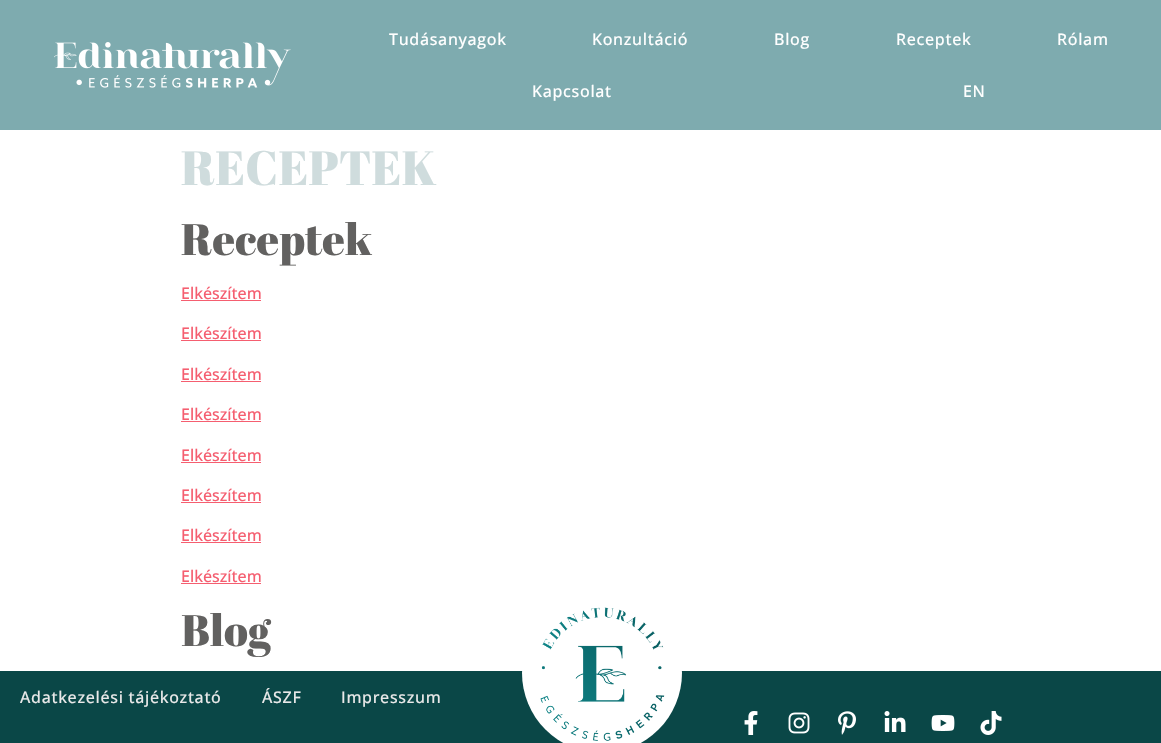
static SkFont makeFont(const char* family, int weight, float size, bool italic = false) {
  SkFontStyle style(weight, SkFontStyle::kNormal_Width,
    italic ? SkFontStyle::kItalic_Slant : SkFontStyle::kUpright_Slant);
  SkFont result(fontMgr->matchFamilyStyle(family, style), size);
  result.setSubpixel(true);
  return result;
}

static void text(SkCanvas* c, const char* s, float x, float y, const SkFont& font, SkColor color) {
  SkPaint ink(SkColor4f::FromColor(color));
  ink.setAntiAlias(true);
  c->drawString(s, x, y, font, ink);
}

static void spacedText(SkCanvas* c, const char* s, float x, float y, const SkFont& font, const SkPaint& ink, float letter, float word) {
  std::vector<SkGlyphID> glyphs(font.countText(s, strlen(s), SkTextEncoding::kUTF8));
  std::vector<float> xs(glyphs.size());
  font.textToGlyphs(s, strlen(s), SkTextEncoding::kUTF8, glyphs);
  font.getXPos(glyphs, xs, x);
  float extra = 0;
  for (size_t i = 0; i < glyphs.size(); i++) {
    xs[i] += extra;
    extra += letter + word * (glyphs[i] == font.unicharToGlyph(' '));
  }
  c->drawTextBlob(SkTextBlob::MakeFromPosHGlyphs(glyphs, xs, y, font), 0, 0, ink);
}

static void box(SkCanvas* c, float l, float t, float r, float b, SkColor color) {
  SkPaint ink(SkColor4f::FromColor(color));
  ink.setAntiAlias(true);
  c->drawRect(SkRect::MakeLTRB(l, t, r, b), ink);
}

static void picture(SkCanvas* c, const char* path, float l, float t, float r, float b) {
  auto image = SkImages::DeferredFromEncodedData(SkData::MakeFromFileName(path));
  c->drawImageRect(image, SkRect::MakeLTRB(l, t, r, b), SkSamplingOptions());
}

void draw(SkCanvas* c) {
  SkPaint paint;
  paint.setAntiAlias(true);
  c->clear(0xffffffff);
  box(c, 0, 0, 1161, 130, 0xff7eabaf);
  picture(c, "img_01.png", 54, 42, 291, 88);
  SkFont face1 = makeFont("Open Sans", 500, 16);
  paint.setColor(0xffffffff);
  spacedText(c, "Tudásanyagok", 389, 45, face1, paint, 0.7f, 0);
  spacedText(c, "Konzultáció", 592, 45, face1, paint, 0.7f, 0);
  spacedText(c, "Blog", 774, 45, face1, paint, 0.7f, 0);
  spacedText(c, "Receptek", 896, 45, face1, paint, 0.7f, 0);
  spacedText(c, "Rólam", 1057, 45, face1, paint, 0.7f, 0);
  spacedText(c, "Kapcsolat", 532, 97, face1, paint, 0.7f, 0);
  spacedText(c, "EN", 963, 97, face1, paint, 0.7f, 0);
  SkFont face2 = makeFont("Abril Fatface", 400, 48);
  text(c, "RECEPTEK", 181, 185, face2, 0xffcfdcdd);
  SkFont face3 = makeFont("Abril Fatface", 400, 44);
  text(c, "Receptek", 181, 255, face3, 0xff626160);
  text(c, "Elkészítem", 181, 299, face1, 0xfff55e70);
  box(c, 181, 300, 261, 301, 0xfff55e70);
  text(c, "Elkészítem", 181, 339, face1, 0xfff55e70);
  box(c, 181, 340, 261, 341, 0xfff55e70);
  text(c, "Elkészítem", 181, 380, face1, 0xfff55e70);
  box(c, 181, 381, 261, 382, 0xfff55e70);
  text(c, "Elkészítem", 181, 420, face1, 0xfff55e70);
  box(c, 181, 421, 261, 422, 0xfff55e70);
  text(c, "Elkészítem", 181, 461, face1, 0xfff55e70);
  box(c, 181, 462, 261, 463, 0xfff55e70);
  text(c, "Elkészítem", 181, 501, face1, 0xfff55e70);
  box(c, 181, 502, 261, 503, 0xfff55e70);
  text(c, "Elkészítem", 181, 541, face1, 0xfff55e70);
  box(c, 181, 542, 261, 543, 0xfff55e70);
  text(c, "Elkészítem", 181, 582, face1, 0xfff55e70);
  box(c, 181, 583, 261, 584, 0xfff55e70);
  text(c, "Blog", 181, 646, face3, 0xff626160);
  box(c, 0, 671, 1161, 743, 0xff0a4747);
  paint.setColor(0xffe9e9e9);
  spacedText(c, "Adatkezelési tájékoztató", 20, 703, face1, paint, 0.7f, 0);
  spacedText(c, "ÁSZF", 262, 703, face1, paint, 0.7f, 0);
  spacedText(c, "Impresszum", 341, 703, face1, paint, 0.7f, 0);
  paint.setColor(0xffffffff);
  c->drawCircle(602, 673, 80, paint);
  picture(c, "img_02.png", 540, 607, 665, 741);
  picture(c, "img_03.png", 744, 711, 758, 735);
  picture(c, "img_04.png", 788, 712, 810, 734);
  picture(c, "img_05.png", 838, 711, 856, 735);
  picture(c, "img_06.png", 884, 711, 906, 732);
  picture(c, "img_07.png", 931, 715, 955, 731);
  picture(c, "img_08.png", 980, 711, 1002, 735);
}
